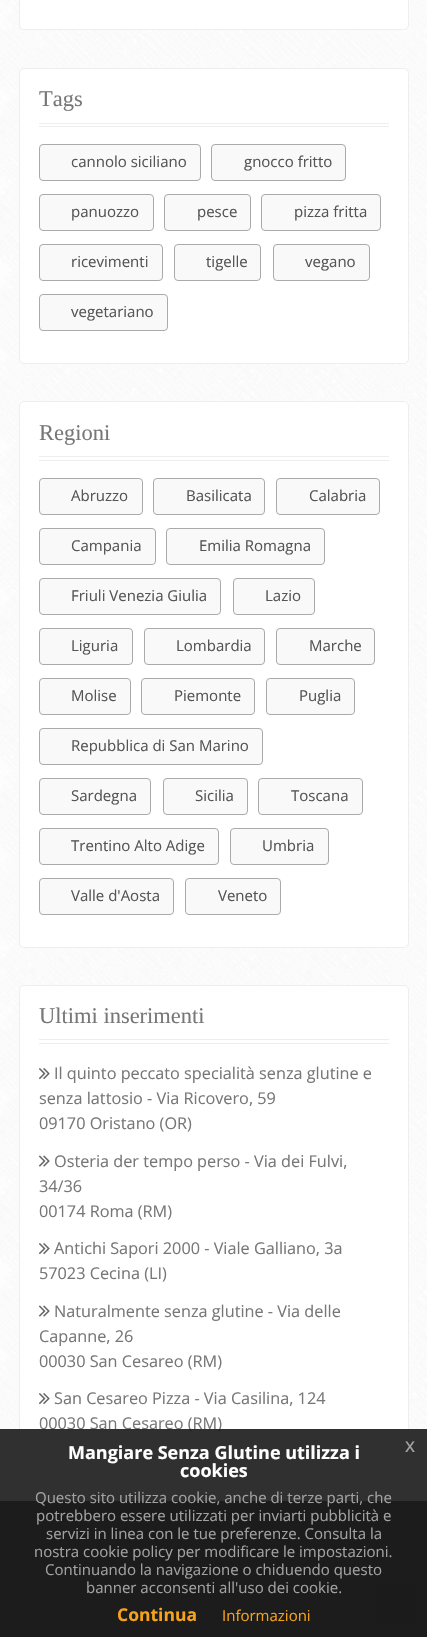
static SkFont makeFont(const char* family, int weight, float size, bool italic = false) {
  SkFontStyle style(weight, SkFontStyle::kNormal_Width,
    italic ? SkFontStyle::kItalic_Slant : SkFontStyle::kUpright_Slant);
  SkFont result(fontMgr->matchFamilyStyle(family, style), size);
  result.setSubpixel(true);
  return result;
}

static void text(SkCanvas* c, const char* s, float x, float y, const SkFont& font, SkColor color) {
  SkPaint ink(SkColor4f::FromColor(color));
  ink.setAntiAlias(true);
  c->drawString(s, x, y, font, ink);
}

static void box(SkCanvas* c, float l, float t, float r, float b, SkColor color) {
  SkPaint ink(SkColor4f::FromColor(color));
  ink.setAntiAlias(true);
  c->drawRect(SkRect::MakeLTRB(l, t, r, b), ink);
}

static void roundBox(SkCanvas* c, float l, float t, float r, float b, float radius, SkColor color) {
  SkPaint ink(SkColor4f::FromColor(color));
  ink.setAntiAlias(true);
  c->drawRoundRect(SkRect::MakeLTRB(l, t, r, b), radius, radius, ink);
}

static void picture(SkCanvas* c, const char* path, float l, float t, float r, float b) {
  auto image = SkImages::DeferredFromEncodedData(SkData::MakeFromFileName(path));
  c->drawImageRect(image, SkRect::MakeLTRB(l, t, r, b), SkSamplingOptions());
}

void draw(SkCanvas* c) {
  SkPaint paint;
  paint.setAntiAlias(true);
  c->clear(0xffffffff);
  picture(c, "img_01.png", 0, 0, 427, 1618);
  paint.setColor(0xffffffff);
  c->drawRoundRect(SkRect::MakeLTRB(19.5f, -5.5f, 408.5f, 29.5f), 4.5f, 4.5f, paint);
  paint.setStyle(SkPaint::kStroke_Style);
  paint.setStrokeWidth(1);
  paint.setColor(0xffeeeeee);
  c->drawRoundRect(SkRect::MakeLTRB(19.5f, -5.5f, 408.5f, 29.5f), 4.5f, 4.5f, paint);
  paint.setStyle(SkPaint::kFill_Style);
  paint.setColor(0xffffffff);
  c->drawRoundRect(SkRect::MakeLTRB(19.5f, 68.5f, 408.5f, 363.5f), 4.5f, 4.5f, paint);
  paint.setStyle(SkPaint::kStroke_Style);
  paint.setColor(0xffeeeeee);
  c->drawRoundRect(SkRect::MakeLTRB(19.5f, 68.5f, 408.5f, 363.5f), 4.5f, 4.5f, paint);
  box(c, 39, 123, 389, 124, 0xffeeeeee);
  box(c, 39, 126, 389, 127, 0xffeeeeee);
  SkFont face1 = makeFont("Liberation Serif", 400, 22.5f);
  text(c, "Tags", 39, 106, face1, 0xff777777);
  paint.setStyle(SkPaint::kFill_Style);
  paint.setColor(0xfff9f9f9);
  c->drawRoundRect(SkRect::MakeLTRB(39.5f, 144.5f, 200.5f, 180.5f), 3.5f, 3.5f, paint);
  paint.setStyle(SkPaint::kStroke_Style);
  paint.setColor(0xffaaaaaa);
  c->drawRoundRect(SkRect::MakeLTRB(39.5f, 144.5f, 200.5f, 180.5f), 3.5f, 3.5f, paint);
  SkFont face2 = makeFont("Open Sans", 400, 15);
  text(c, "cannolo siciliano", 71, 167, face2, 0xff555555);
  paint.setStyle(SkPaint::kFill_Style);
  paint.setColor(0xfff9f9f9);
  c->drawRoundRect(SkRect::MakeLTRB(211.5f, 144.5f, 345.5f, 180.5f), 3.5f, 3.5f, paint);
  paint.setStyle(SkPaint::kStroke_Style);
  paint.setColor(0xffaaaaaa);
  c->drawRoundRect(SkRect::MakeLTRB(211.5f, 144.5f, 345.5f, 180.5f), 3.5f, 3.5f, paint);
  text(c, "gnocco fritto", 244, 167, face2, 0xff555555);
  paint.setStyle(SkPaint::kFill_Style);
  paint.setColor(0xfff9f9f9);
  c->drawRoundRect(SkRect::MakeLTRB(39.5f, 194.5f, 153.5f, 230.5f), 3.5f, 3.5f, paint);
  paint.setStyle(SkPaint::kStroke_Style);
  paint.setColor(0xffaaaaaa);
  c->drawRoundRect(SkRect::MakeLTRB(39.5f, 194.5f, 153.5f, 230.5f), 3.5f, 3.5f, paint);
  text(c, "panuozzo", 71, 217, face2, 0xff555555);
  paint.setStyle(SkPaint::kFill_Style);
  paint.setColor(0xfff9f9f9);
  c->drawRoundRect(SkRect::MakeLTRB(164.5f, 194.5f, 250.5f, 230.5f), 3.5f, 3.5f, paint);
  paint.setStyle(SkPaint::kStroke_Style);
  paint.setColor(0xffaaaaaa);
  c->drawRoundRect(SkRect::MakeLTRB(164.5f, 194.5f, 250.5f, 230.5f), 3.5f, 3.5f, paint);
  text(c, "pesce", 197, 217, face2, 0xff555555);
  paint.setStyle(SkPaint::kFill_Style);
  paint.setColor(0xfff9f9f9);
  c->drawRoundRect(SkRect::MakeLTRB(261.5f, 194.5f, 380.5f, 230.5f), 3.5f, 3.5f, paint);
  paint.setStyle(SkPaint::kStroke_Style);
  paint.setColor(0xffaaaaaa);
  c->drawRoundRect(SkRect::MakeLTRB(261.5f, 194.5f, 380.5f, 230.5f), 3.5f, 3.5f, paint);
  text(c, "pizza fritta", 294, 217, face2, 0xff555555);
  paint.setStyle(SkPaint::kFill_Style);
  paint.setColor(0xfff9f9f9);
  c->drawRoundRect(SkRect::MakeLTRB(39.5f, 244.5f, 162.5f, 280.5f), 3.5f, 3.5f, paint);
  paint.setStyle(SkPaint::kStroke_Style);
  paint.setColor(0xffaaaaaa);
  c->drawRoundRect(SkRect::MakeLTRB(39.5f, 244.5f, 162.5f, 280.5f), 3.5f, 3.5f, paint);
  text(c, "ricevimenti", 71, 267, face2, 0xff555555);
  paint.setStyle(SkPaint::kFill_Style);
  paint.setColor(0xfff9f9f9);
  c->drawRoundRect(SkRect::MakeLTRB(174.5f, 244.5f, 260.5f, 280.5f), 3.5f, 3.5f, paint);
  paint.setStyle(SkPaint::kStroke_Style);
  paint.setColor(0xffaaaaaa);
  c->drawRoundRect(SkRect::MakeLTRB(174.5f, 244.5f, 260.5f, 280.5f), 3.5f, 3.5f, paint);
  text(c, "tigelle", 206, 267, face2, 0xff555555);
  paint.setStyle(SkPaint::kFill_Style);
  paint.setColor(0xfff9f9f9);
  c->drawRoundRect(SkRect::MakeLTRB(273.5f, 244.5f, 369.5f, 280.5f), 3.5f, 3.5f, paint);
  paint.setStyle(SkPaint::kStroke_Style);
  paint.setColor(0xffaaaaaa);
  c->drawRoundRect(SkRect::MakeLTRB(273.5f, 244.5f, 369.5f, 280.5f), 3.5f, 3.5f, paint);
  text(c, "vegano", 305, 267, face2, 0xff555555);
  paint.setStyle(SkPaint::kFill_Style);
  paint.setColor(0xfff9f9f9);
  c->drawRoundRect(SkRect::MakeLTRB(39.5f, 294.5f, 167.5f, 330.5f), 3.5f, 3.5f, paint);
  paint.setStyle(SkPaint::kStroke_Style);
  paint.setColor(0xffaaaaaa);
  c->drawRoundRect(SkRect::MakeLTRB(39.5f, 294.5f, 167.5f, 330.5f), 3.5f, 3.5f, paint);
  text(c, "vegetariano", 71, 317, face2, 0xff555555);
  paint.setStyle(SkPaint::kFill_Style);
  paint.setColor(0xffffffff);
  c->drawRoundRect(SkRect::MakeLTRB(19.5f, 401.5f, 408.5f, 947.5f), 4.5f, 4.5f, paint);
  paint.setStyle(SkPaint::kStroke_Style);
  paint.setColor(0xffeeeeee);
  c->drawRoundRect(SkRect::MakeLTRB(19.5f, 401.5f, 408.5f, 947.5f), 4.5f, 4.5f, paint);
  box(c, 39, 456, 389, 457, 0xffeeeeee);
  box(c, 39, 460, 389, 461, 0xffeeeeee);
  text(c, "Regioni", 39, 440, face1, 0xff777777);
  paint.setStyle(SkPaint::kFill_Style);
  paint.setColor(0xfff9f9f9);
  c->drawRoundRect(SkRect::MakeLTRB(39.5f, 478.5f, 142.5f, 514.5f), 3.5f, 3.5f, paint);
  paint.setStyle(SkPaint::kStroke_Style);
  paint.setColor(0xffaaaaaa);
  c->drawRoundRect(SkRect::MakeLTRB(39.5f, 478.5f, 142.5f, 514.5f), 3.5f, 3.5f, paint);
  text(c, "Abruzzo", 71, 501, face2, 0xff555555);
  paint.setStyle(SkPaint::kFill_Style);
  paint.setColor(0xfff9f9f9);
  c->drawRoundRect(SkRect::MakeLTRB(153.5f, 478.5f, 264.5f, 514.5f), 3.5f, 3.5f, paint);
  paint.setStyle(SkPaint::kStroke_Style);
  paint.setColor(0xffaaaaaa);
  c->drawRoundRect(SkRect::MakeLTRB(153.5f, 478.5f, 264.5f, 514.5f), 3.5f, 3.5f, paint);
  text(c, "Basilicata", 186, 501, face2, 0xff555555);
  paint.setStyle(SkPaint::kFill_Style);
  paint.setColor(0xfff9f9f9);
  c->drawRoundRect(SkRect::MakeLTRB(276.5f, 478.5f, 379.5f, 514.5f), 3.5f, 3.5f, paint);
  paint.setStyle(SkPaint::kStroke_Style);
  paint.setColor(0xffaaaaaa);
  c->drawRoundRect(SkRect::MakeLTRB(276.5f, 478.5f, 379.5f, 514.5f), 3.5f, 3.5f, paint);
  text(c, "Calabria", 309, 501, face2, 0xff555555);
  paint.setStyle(SkPaint::kFill_Style);
  paint.setColor(0xfff9f9f9);
  c->drawRoundRect(SkRect::MakeLTRB(39.5f, 528.5f, 155.5f, 564.5f), 3.5f, 3.5f, paint);
  paint.setStyle(SkPaint::kStroke_Style);
  paint.setColor(0xffaaaaaa);
  c->drawRoundRect(SkRect::MakeLTRB(39.5f, 528.5f, 155.5f, 564.5f), 3.5f, 3.5f, paint);
  text(c, "Campania", 71, 551, face2, 0xff555555);
  paint.setStyle(SkPaint::kFill_Style);
  paint.setColor(0xfff9f9f9);
  c->drawRoundRect(SkRect::MakeLTRB(166.5f, 528.5f, 324.5f, 564.5f), 3.5f, 3.5f, paint);
  paint.setStyle(SkPaint::kStroke_Style);
  paint.setColor(0xffaaaaaa);
  c->drawRoundRect(SkRect::MakeLTRB(166.5f, 528.5f, 324.5f, 564.5f), 3.5f, 3.5f, paint);
  text(c, "Emilia Romagna", 199, 551, face2, 0xff555555);
  paint.setStyle(SkPaint::kFill_Style);
  paint.setColor(0xfff9f9f9);
  c->drawRoundRect(SkRect::MakeLTRB(39.5f, 578.5f, 220.5f, 614.5f), 3.5f, 3.5f, paint);
  paint.setStyle(SkPaint::kStroke_Style);
  paint.setColor(0xffaaaaaa);
  c->drawRoundRect(SkRect::MakeLTRB(39.5f, 578.5f, 220.5f, 614.5f), 3.5f, 3.5f, paint);
  text(c, "Friuli Venezia Giulia", 71, 601, face2, 0xff555555);
  paint.setStyle(SkPaint::kFill_Style);
  paint.setColor(0xfff9f9f9);
  c->drawRoundRect(SkRect::MakeLTRB(233.5f, 578.5f, 314.5f, 614.5f), 3.5f, 3.5f, paint);
  paint.setStyle(SkPaint::kStroke_Style);
  paint.setColor(0xffaaaaaa);
  c->drawRoundRect(SkRect::MakeLTRB(233.5f, 578.5f, 314.5f, 614.5f), 3.5f, 3.5f, paint);
  text(c, "Lazio", 265, 601, face2, 0xff555555);
  paint.setStyle(SkPaint::kFill_Style);
  paint.setColor(0xfff9f9f9);
  c->drawRoundRect(SkRect::MakeLTRB(39.5f, 628.5f, 132.5f, 664.5f), 3.5f, 3.5f, paint);
  paint.setStyle(SkPaint::kStroke_Style);
  paint.setColor(0xffaaaaaa);
  c->drawRoundRect(SkRect::MakeLTRB(39.5f, 628.5f, 132.5f, 664.5f), 3.5f, 3.5f, paint);
  text(c, "Liguria", 71, 651, face2, 0xff555555);
  paint.setStyle(SkPaint::kFill_Style);
  paint.setColor(0xfff9f9f9);
  c->drawRoundRect(SkRect::MakeLTRB(144.5f, 628.5f, 264.5f, 664.5f), 3.5f, 3.5f, paint);
  paint.setStyle(SkPaint::kStroke_Style);
  paint.setColor(0xffaaaaaa);
  c->drawRoundRect(SkRect::MakeLTRB(144.5f, 628.5f, 264.5f, 664.5f), 3.5f, 3.5f, paint);
  text(c, "Lombardia", 176, 651, face2, 0xff555555);
  paint.setStyle(SkPaint::kFill_Style);
  paint.setColor(0xfff9f9f9);
  c->drawRoundRect(SkRect::MakeLTRB(276.5f, 628.5f, 374.5f, 664.5f), 3.5f, 3.5f, paint);
  paint.setStyle(SkPaint::kStroke_Style);
  paint.setColor(0xffaaaaaa);
  c->drawRoundRect(SkRect::MakeLTRB(276.5f, 628.5f, 374.5f, 664.5f), 3.5f, 3.5f, paint);
  text(c, "Marche", 309, 651, face2, 0xff555555);
  paint.setStyle(SkPaint::kFill_Style);
  paint.setColor(0xfff9f9f9);
  c->drawRoundRect(SkRect::MakeLTRB(39.5f, 678.5f, 130.5f, 714.5f), 3.5f, 3.5f, paint);
  paint.setStyle(SkPaint::kStroke_Style);
  paint.setColor(0xffaaaaaa);
  c->drawRoundRect(SkRect::MakeLTRB(39.5f, 678.5f, 130.5f, 714.5f), 3.5f, 3.5f, paint);
  text(c, "Molise", 71, 701, face2, 0xff555555);
  paint.setStyle(SkPaint::kFill_Style);
  paint.setColor(0xfff9f9f9);
  c->drawRoundRect(SkRect::MakeLTRB(141.5f, 678.5f, 254.5f, 714.5f), 3.5f, 3.5f, paint);
  paint.setStyle(SkPaint::kStroke_Style);
  paint.setColor(0xffaaaaaa);
  c->drawRoundRect(SkRect::MakeLTRB(141.5f, 678.5f, 254.5f, 714.5f), 3.5f, 3.5f, paint);
  text(c, "Piemonte", 174, 701, face2, 0xff555555);
  paint.setStyle(SkPaint::kFill_Style);
  paint.setColor(0xfff9f9f9);
  c->drawRoundRect(SkRect::MakeLTRB(266.5f, 678.5f, 354.5f, 714.5f), 3.5f, 3.5f, paint);
  paint.setStyle(SkPaint::kStroke_Style);
  paint.setColor(0xffaaaaaa);
  c->drawRoundRect(SkRect::MakeLTRB(266.5f, 678.5f, 354.5f, 714.5f), 3.5f, 3.5f, paint);
  text(c, "Puglia", 299, 701, face2, 0xff555555);
  paint.setStyle(SkPaint::kFill_Style);
  paint.setColor(0xfff9f9f9);
  c->drawRoundRect(SkRect::MakeLTRB(39.5f, 728.5f, 262.5f, 764.5f), 3.5f, 3.5f, paint);
  paint.setStyle(SkPaint::kStroke_Style);
  paint.setColor(0xffaaaaaa);
  c->drawRoundRect(SkRect::MakeLTRB(39.5f, 728.5f, 262.5f, 764.5f), 3.5f, 3.5f, paint);
  text(c, "Repubblica di San Marino", 71, 751, face2, 0xff555555);
  paint.setStyle(SkPaint::kFill_Style);
  paint.setColor(0xfff9f9f9);
  c->drawRoundRect(SkRect::MakeLTRB(39.5f, 778.5f, 150.5f, 814.5f), 3.5f, 3.5f, paint);
  paint.setStyle(SkPaint::kStroke_Style);
  paint.setColor(0xffaaaaaa);
  c->drawRoundRect(SkRect::MakeLTRB(39.5f, 778.5f, 150.5f, 814.5f), 3.5f, 3.5f, paint);
  text(c, "Sardegna", 71, 801, face2, 0xff555555);
  paint.setStyle(SkPaint::kFill_Style);
  paint.setColor(0xfff9f9f9);
  c->drawRoundRect(SkRect::MakeLTRB(163.5f, 778.5f, 247.5f, 814.5f), 3.5f, 3.5f, paint);
  paint.setStyle(SkPaint::kStroke_Style);
  paint.setColor(0xffaaaaaa);
  c->drawRoundRect(SkRect::MakeLTRB(163.5f, 778.5f, 247.5f, 814.5f), 3.5f, 3.5f, paint);
  text(c, "Sicilia", 195, 801, face2, 0xff555555);
  paint.setStyle(SkPaint::kFill_Style);
  paint.setColor(0xfff9f9f9);
  c->drawRoundRect(SkRect::MakeLTRB(258.5f, 778.5f, 362.5f, 814.5f), 3.5f, 3.5f, paint);
  paint.setStyle(SkPaint::kStroke_Style);
  paint.setColor(0xffaaaaaa);
  c->drawRoundRect(SkRect::MakeLTRB(258.5f, 778.5f, 362.5f, 814.5f), 3.5f, 3.5f, paint);
  text(c, "Toscana", 291, 801, face2, 0xff555555);
  paint.setStyle(SkPaint::kFill_Style);
  paint.setColor(0xfff9f9f9);
  c->drawRoundRect(SkRect::MakeLTRB(39.5f, 828.5f, 218.5f, 864.5f), 3.5f, 3.5f, paint);
  paint.setStyle(SkPaint::kStroke_Style);
  paint.setColor(0xffaaaaaa);
  c->drawRoundRect(SkRect::MakeLTRB(39.5f, 828.5f, 218.5f, 864.5f), 3.5f, 3.5f, paint);
  text(c, "Trentino Alto Adige", 71, 851, face2, 0xff555555);
  paint.setStyle(SkPaint::kFill_Style);
  paint.setColor(0xfff9f9f9);
  c->drawRoundRect(SkRect::MakeLTRB(230.5f, 828.5f, 328.5f, 864.5f), 3.5f, 3.5f, paint);
  paint.setStyle(SkPaint::kStroke_Style);
  paint.setColor(0xffaaaaaa);
  c->drawRoundRect(SkRect::MakeLTRB(230.5f, 828.5f, 328.5f, 864.5f), 3.5f, 3.5f, paint);
  text(c, "Umbria", 262, 851, face2, 0xff555555);
  paint.setStyle(SkPaint::kFill_Style);
  paint.setColor(0xfff9f9f9);
  c->drawRoundRect(SkRect::MakeLTRB(39.5f, 878.5f, 173.5f, 914.5f), 3.5f, 3.5f, paint);
  paint.setStyle(SkPaint::kStroke_Style);
  paint.setColor(0xffaaaaaa);
  c->drawRoundRect(SkRect::MakeLTRB(39.5f, 878.5f, 173.5f, 914.5f), 3.5f, 3.5f, paint);
  text(c, "Valle d'Aosta", 71, 901, face2, 0xff555555);
  paint.setStyle(SkPaint::kFill_Style);
  paint.setColor(0xfff9f9f9);
  c->drawRoundRect(SkRect::MakeLTRB(185.5f, 878.5f, 280.5f, 914.5f), 3.5f, 3.5f, paint);
  paint.setStyle(SkPaint::kStroke_Style);
  paint.setColor(0xffaaaaaa);
  c->drawRoundRect(SkRect::MakeLTRB(185.5f, 878.5f, 280.5f, 914.5f), 3.5f, 3.5f, paint);
  text(c, "Veneto", 218, 901, face2, 0xff555555);
  paint.setStyle(SkPaint::kFill_Style);
  paint.setColor(0xffffffff);
  c->drawRoundRect(SkRect::MakeLTRB(19.5f, 985.5f, 408.5f, 1467.5f), 4.5f, 4.5f, paint);
  paint.setStyle(SkPaint::kStroke_Style);
  paint.setColor(0xffeeeeee);
  c->drawRoundRect(SkRect::MakeLTRB(19.5f, 985.5f, 408.5f, 1467.5f), 4.5f, 4.5f, paint);
  box(c, 39, 1039, 389, 1040, 0xffeeeeee);
  box(c, 39, 1043, 389, 1044, 0xffeeeeee);
  text(c, "Ultimi inserimenti", 39, 1023, face1, 0xff777777);
  picture(c, "img_02.png", 39, 1068, 50, 1080);
  SkFont face3 = makeFont("Open Sans", 400, 16.25f);
  text(c, "Il quinto peccato specialità senza glutine e", 54, 1079, face3, 0xff777777);
  text(c, "senza lattosio - Via Ricovero, 59", 39, 1104, face3, 0xff777777);
  text(c, "09170 Oristano (OR)", 39, 1129, face3, 0xff777777);
  picture(c, "img_03.png", 38, 1155, 50, 1167);
  text(c, "Osteria der tempo perso - Via dei Fulvi,", 54, 1167, face3, 0xff777777);
  text(c, "34/36", 39, 1192, face3, 0xff777777);
  text(c, "00174 Roma (RM)", 39, 1217, face3, 0xff777777);
  picture(c, "img_02.png", 39, 1243, 50, 1255);
  text(c, "Antichi Sapori 2000 - Viale Galliano, 3a", 54, 1254, face3, 0xff777777);
  text(c, "57023 Cecina (LI)", 39, 1279, face3, 0xff777777);
  picture(c, "img_03.png", 38, 1305, 50, 1317);
  text(c, "Naturalmente senza glutine - Via delle", 54, 1317, face3, 0xff777777);
  text(c, "Capanne, 26", 39, 1342, face3, 0xff777777);
  text(c, "00030 San Cesareo (RM)", 39, 1367, face3, 0xff777777);
  picture(c, "img_02.png", 39, 1393, 50, 1405);
  text(c, "San Cesareo Pizza - Via Casilina, 124", 54, 1404, face3, 0xff777777);
  text(c, "00030 San Cesareo (RM)", 39, 1429, face3, 0xff777777);
  box(c, 0, 1618, 427, 1619, 0xffeaeaea);
  roundBox(c, 375, 1585, 415, 1625, 1, 0xfff75353);
  picture(c, "img_04.png", 387, 1600, 403, 1610);
  box(c, 0, 1501, 427, 1637, 0xe6191919);
  box(c, 0, 1429, 427, 1637, 0xe6191919);
  SkFont face4 = makeFont("Open Sans", 700, 18);
  text(c, "Mangiare Senza Glutine utilizza i", 68, 1459, face4, 0xffffffff);
  text(c, "cookies", 180, 1477, face4, 0xffffffff);
  SkFont face5 = makeFont("Liberation Sans", 400, 20);
  text(c, "x", 405, 1452, face5, 0xffa2a2a2);
  text(c, "Questo sito utilizza cookie, anche di terze parti, che", 35, 1503, face2, 0xffa2a2a2);
  text(c, "potrebbero essere utilizzati per inviarti pubblicità e", 36, 1521, face2, 0xffa2a2a2);
  text(c, "servizi in linea con le tue preferenze. Consulta la", 46, 1539, face2, 0xffa2a2a2);
  text(c, "nostra cookie policy per modificare le impostazioni.", 34, 1557, face2, 0xffa2a2a2);
  text(c, "Continuando la navigazione o chiduendo questo", 45, 1575, face2, 0xffa2a2a2);
  text(c, "banner acconsenti all'uso dei cookie.", 86, 1593, face2, 0xffa2a2a2);
  SkFont face6 = makeFont("Open Sans", 700, 17.5f);
  text(c, "Continua", 117, 1621, face6, 0xfff6a21d);
  text(c, "Informazioni", 222, 1621, face2, 0xfff6a21d);
}
